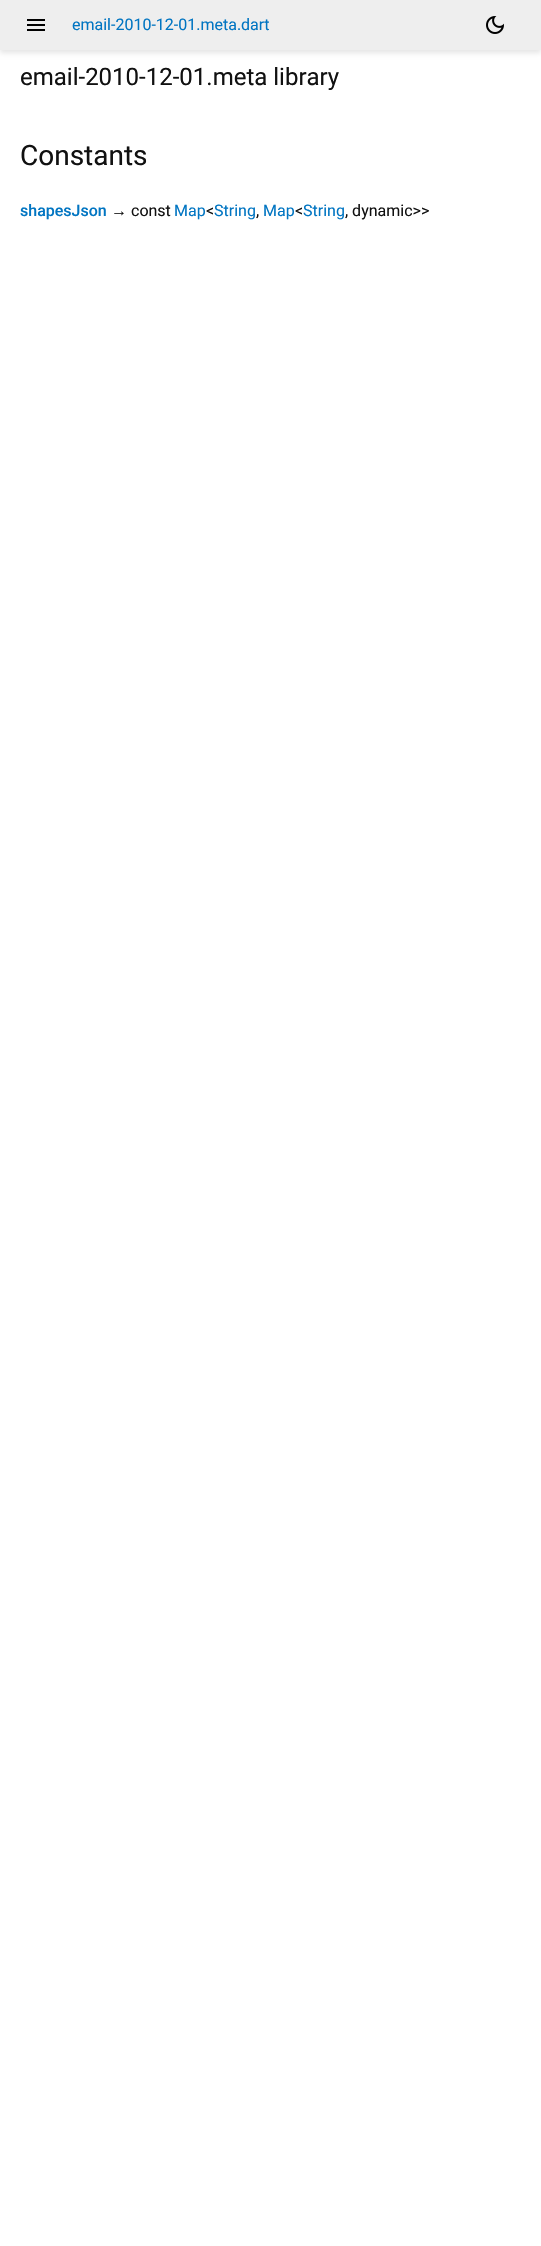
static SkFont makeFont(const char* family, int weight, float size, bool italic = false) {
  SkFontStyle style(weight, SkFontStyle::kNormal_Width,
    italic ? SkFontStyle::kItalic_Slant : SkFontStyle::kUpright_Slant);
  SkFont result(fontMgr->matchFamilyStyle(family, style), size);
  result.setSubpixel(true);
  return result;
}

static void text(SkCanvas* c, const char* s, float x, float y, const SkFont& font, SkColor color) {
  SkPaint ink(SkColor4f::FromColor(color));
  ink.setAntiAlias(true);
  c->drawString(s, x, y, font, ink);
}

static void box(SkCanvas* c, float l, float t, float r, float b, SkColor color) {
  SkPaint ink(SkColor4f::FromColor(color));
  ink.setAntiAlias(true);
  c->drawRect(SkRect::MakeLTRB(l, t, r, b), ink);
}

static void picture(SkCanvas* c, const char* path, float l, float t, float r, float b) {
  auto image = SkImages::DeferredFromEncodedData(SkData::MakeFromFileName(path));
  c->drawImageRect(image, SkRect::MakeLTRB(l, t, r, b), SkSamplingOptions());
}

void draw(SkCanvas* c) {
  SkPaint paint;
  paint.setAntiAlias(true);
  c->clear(0xffffffff);
  paint.setColor(0x1a000000);
  paint.setMaskFilter(SkMaskFilter::MakeBlur(kNormal_SkBlurStyle, 2.5f));
  c->drawRect(SkRect::MakeLTRB(0, 3, 541, 53), paint);
  paint.setMaskFilter(nullptr);
  box(c, 0, 0, 541, 50, 0xffeeeeee);
  picture(c, "img_01.png", 27, 19, 45, 31);
  SkFont face1 = makeFont("Roboto", 400, 16);
  text(c, "email-2010-12-01.meta.dart", 72, 30, face1, 0xff0175c2);
  picture(c, "img_02.png", 486, 16, 504, 34);
  SkFont face2 = makeFont("Roboto", 400, 24);
  text(c, "email-2010-12-01.meta library", 20, 85, face2, 0xff111111);
  SkFont face3 = makeFont("Roboto", 400, 28);
  text(c, "Constants", 20, 165, face3, 0xff111111);
  SkFont face4 = makeFont("Roboto", 500, 16);
  text(c, "shapesJson", 20, 216, face4, 0xff0175c2);
  SkFont face5 = makeFont("Liberation Sans", 400, 16);
  text(c, "→", 111, 216, face5, 0xff111111);
  text(c, "const", 131, 216, face1, 0xff111111);
  text(c, "Map", 174, 216, face1, 0xff0175c2);
  text(c, "<", 206, 216, face1, 0xff111111);
  text(c, "String", 214, 216, face1, 0xff0175c2);
  text(c, "Map", 263, 216, face1, 0xff0175c2);
  text(c, "<", 295, 216, face1, 0xff111111);
  text(c, "String", 303, 216, face1, 0xff0175c2);
  text(c, ", dynamic>>", 345, 216, face1, 0xff111111);
  text(c, ",", 256, 216, face1, 0xff111111);
}
